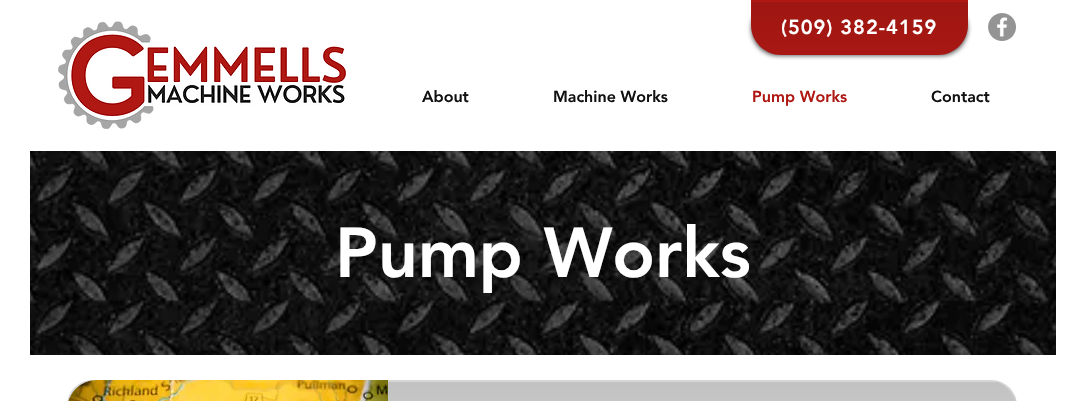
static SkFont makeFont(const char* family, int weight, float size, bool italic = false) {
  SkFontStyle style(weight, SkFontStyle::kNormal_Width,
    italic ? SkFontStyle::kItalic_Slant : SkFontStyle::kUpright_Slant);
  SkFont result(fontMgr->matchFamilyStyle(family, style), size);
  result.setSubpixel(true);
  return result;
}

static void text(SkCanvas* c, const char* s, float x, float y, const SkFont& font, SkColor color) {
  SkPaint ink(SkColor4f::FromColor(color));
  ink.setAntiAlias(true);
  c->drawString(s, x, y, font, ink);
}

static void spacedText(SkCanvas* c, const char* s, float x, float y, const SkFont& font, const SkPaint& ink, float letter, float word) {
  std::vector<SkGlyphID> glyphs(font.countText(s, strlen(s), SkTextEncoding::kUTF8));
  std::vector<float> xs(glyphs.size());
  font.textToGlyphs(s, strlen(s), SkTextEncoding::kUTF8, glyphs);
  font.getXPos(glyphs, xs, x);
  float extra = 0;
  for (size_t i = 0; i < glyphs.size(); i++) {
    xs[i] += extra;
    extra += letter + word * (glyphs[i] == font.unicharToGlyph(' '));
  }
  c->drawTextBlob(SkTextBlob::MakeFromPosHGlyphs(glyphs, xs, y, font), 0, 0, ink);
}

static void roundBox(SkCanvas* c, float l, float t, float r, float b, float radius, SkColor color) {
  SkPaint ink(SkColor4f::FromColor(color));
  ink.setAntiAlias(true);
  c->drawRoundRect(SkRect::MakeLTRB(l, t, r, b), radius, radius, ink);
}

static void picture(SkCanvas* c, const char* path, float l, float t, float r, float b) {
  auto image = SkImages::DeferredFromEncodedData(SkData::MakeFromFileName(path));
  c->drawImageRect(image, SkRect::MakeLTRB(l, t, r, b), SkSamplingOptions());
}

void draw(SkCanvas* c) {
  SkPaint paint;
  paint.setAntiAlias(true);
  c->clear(0xffffffff);
  picture(c, "img_01.png", 58, 21, 348, 129);
  paint.setColor(0x99000000);
  paint.setMaskFilter(SkMaskFilter::MakeBlur(kNormal_SkBlurStyle, 2));
  c->drawRoundRect(SkRect::MakeLTRB(751, 1, 968, 56), 30, 30, paint);
  paint.setMaskFilter(nullptr);
  paint.setColor(0xffaf1813);
  c->drawPath(SkPathBuilder().moveTo(751, 0).lineTo(968, 0).lineTo(968, 25).cubicTo(968, 41.5f, 954.5f, 55, 938, 55).lineTo(781, 55).cubicTo(764.5f, 55, 751, 41.5f, 751, 25).close().detach(), paint);
  picture(c, "img_02.png", 751, 2, 968, 55);
  SkFont face1 = makeFont("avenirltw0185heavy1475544", 900, 20);
  paint.setColor(0xffffffff);
  spacedText(c, "(509) 382-4159", 781, 34, face1, paint, 1, 0);
  picture(c, "img_03.png", 988, 13, 1016, 41);
  SkFont face2 = makeFont("avenirltw0185heavy1475544", 900, 16);
  text(c, "About", 422, 102, face2, 0xff111111);
  text(c, "Machine Works", 553, 102, face2, 0xff111111);
  text(c, "Pump Works", 752, 102, face2, 0xffaf1813);
  text(c, "Contact", 931, 102, face2, 0xff111111);
  picture(c, "img_04.png", 30, 151, 1056, 355);
  SkFont face3 = makeFont("avenirltw0185heavy1475544", 900, 70);
  text(c, "Pump Works", 335, 277, face3, 0xffffffff);
  roundBox(c, 67, 380, 1017, 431, 30, 0xffd6d6d6);
  picture(c, "img_05.png", 68, 382, 1016, 401);
  picture(c, "img_06.png", 68, 380, 388, 401);
}
